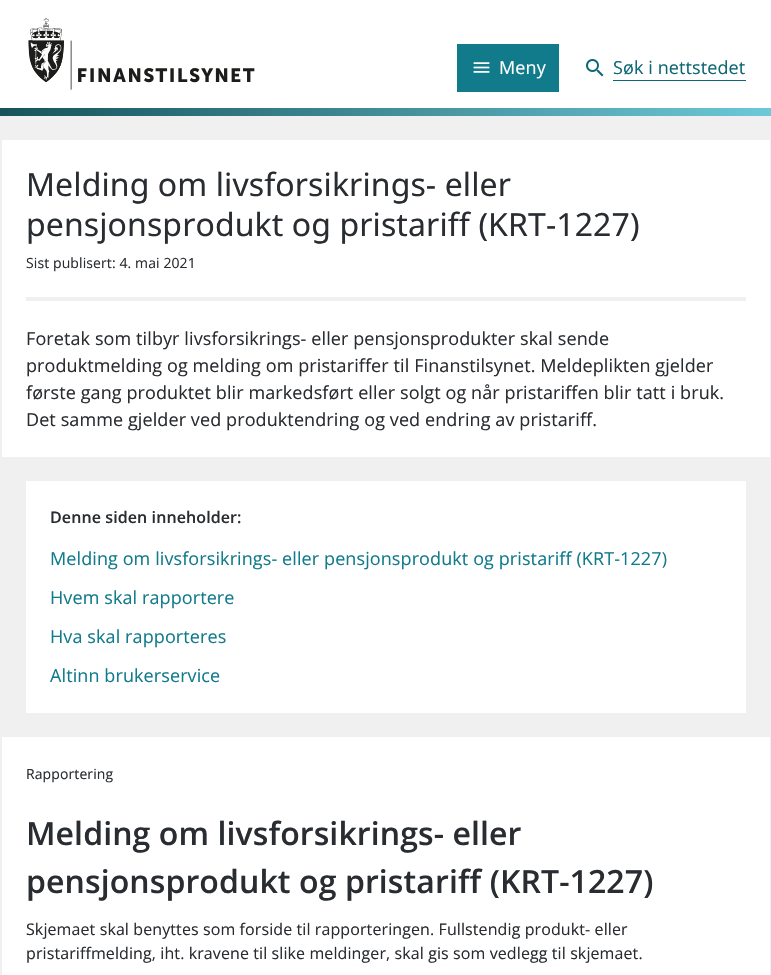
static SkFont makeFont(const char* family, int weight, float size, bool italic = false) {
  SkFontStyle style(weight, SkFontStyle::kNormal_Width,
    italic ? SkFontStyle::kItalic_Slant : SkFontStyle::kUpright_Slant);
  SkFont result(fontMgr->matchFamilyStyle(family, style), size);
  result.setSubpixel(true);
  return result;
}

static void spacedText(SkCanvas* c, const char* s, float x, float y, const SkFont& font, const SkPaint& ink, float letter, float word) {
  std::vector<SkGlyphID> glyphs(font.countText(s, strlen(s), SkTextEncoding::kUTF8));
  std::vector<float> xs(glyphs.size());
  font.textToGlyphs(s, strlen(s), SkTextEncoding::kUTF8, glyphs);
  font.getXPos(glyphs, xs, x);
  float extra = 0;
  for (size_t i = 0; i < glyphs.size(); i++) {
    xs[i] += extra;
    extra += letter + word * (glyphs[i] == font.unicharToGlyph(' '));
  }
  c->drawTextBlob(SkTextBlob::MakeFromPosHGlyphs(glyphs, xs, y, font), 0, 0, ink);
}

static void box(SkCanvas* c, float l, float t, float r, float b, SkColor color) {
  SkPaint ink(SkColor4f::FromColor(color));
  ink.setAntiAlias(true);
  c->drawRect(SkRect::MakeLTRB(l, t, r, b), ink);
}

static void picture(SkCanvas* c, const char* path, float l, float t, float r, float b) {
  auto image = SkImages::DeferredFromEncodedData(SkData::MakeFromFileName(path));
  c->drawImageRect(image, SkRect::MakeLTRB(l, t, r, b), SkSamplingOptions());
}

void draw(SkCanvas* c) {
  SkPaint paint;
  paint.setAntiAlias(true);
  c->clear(0xfff0f0f0);
  box(c, 0, 0, 771, 108, 0xffffffff);
  picture(c, "img_01.png", 28, 18, 255, 90);
  box(c, 457, 44, 559, 92, 0xff117b8c);
  picture(c, "img_02.png", 473, 62, 490, 73);
  SkFont face1 = makeFont("Open Sans", 400, 18);
  paint.setColor(0xffffffff);
  spacedText(c, "Meny", 499, 74, face1, paint, 0.1f, 0);
  picture(c, "img_03.png", 586, 59, 604, 77);
  paint.setColor(0xff0e6775);
  spacedText(c, "Søk i nettstedet", 613, 74, face1, paint, 0.1f, 0);
  box(c, 613, 80, 746, 81, 0xff0e6775);
  {
    const SkColor colors[] = {0xff16535b, 0xff6dc8d7};
    const float stops[] = {0, 1};
    const SkPoint ends[] = {{0, 112}, {771, 112}};
    paint.setShader(SkGradientShader::MakeLinear(ends, colors, stops, 2, SkTileMode::kClamp));
    paint.setAlpha(255);
  }
  c->drawRect(SkRect::MakeLTRB(0, 108, 771, 116), paint);
  box(c, 2, 140, 770, 457, 0xffffffff);
  SkFont face2 = makeFont("Noto Sans", 400, 32);
  paint.setShader(nullptr);
  paint.setColor(0xff292c30);
  spacedText(c, "Melding om livsforsikrings- eller", 26, 196, face2, paint, 0.1f, 0);
  spacedText(c, "pensjonsprodukt og pristariff (KRT-1227)", 26, 236, face2, paint, 0.1f, 0);
  SkFont face3 = makeFont("Open Sans", 400, 14);
  spacedText(c, "Sist publisert: 4. mai 2021", 26, 268, face3, paint, 0.1f, 0);
  box(c, 26, 297, 746, 301, 0xfff0f0f0);
  spacedText(c, "Foretak som tilbyr livsforsikrings- eller pensjonsprodukter skal sende", 26, 345, face1, paint, 0.1f, 0);
  spacedText(c, "produktmelding og melding om pristariffer til Finanstilsynet. Meldeplikten gjelder", 26, 372, face1, paint, 0.1f, 0);
  spacedText(c, "første gang produktet blir markedsført eller solgt og når pristariffen blir tatt i bruk.", 26, 399, face1, paint, 0.1f, 0);
  spacedText(c, "Det samme gjelder ved produktendring og ved endring av pristariff.", 26, 426, face1, paint, 0.1f, 0);
  box(c, 26, 481, 746, 713, 0xffffffff);
  SkFont face4 = makeFont("Open Sans", 600, 16);
  spacedText(c, "Denne siden inneholder:", 50, 523, face4, paint, 0.1f, 0);
  paint.setColor(0xff117b8c);
  spacedText(c, "Melding om livsforsikrings- eller pensjonsprodukt og pristariff (KRT-1227)", 50, 565, face1, paint, 0.1f, 0);
  spacedText(c, "Hvem skal rapportere", 50, 604, face1, paint, 0.1f, 0);
  spacedText(c, "Hva skal rapporteres", 50, 643, face1, paint, 0.1f, 0);
  spacedText(c, "Altinn brukerservice", 50, 682, face1, paint, 0.1f, 0);
  box(c, 2, 737, 770, 975, 0xffffffff);
  paint.setColor(0xff292c30);
  spacedText(c, "Rapportering", 26, 779, face3, paint, 0.1f, 0);
  SkFont face5 = makeFont("Open Sans", 600, 32);
  spacedText(c, "Melding om livsforsikrings- eller", 26, 845, face5, paint, 0.1f, 0);
  spacedText(c, "pensjonsprodukt og pristariff (KRT-1227)", 26, 893, face5, paint, 0.1f, 0);
  SkFont face6 = makeFont("Open Sans", 400, 16);
  spacedText(c, "Skjemaet skal benyttes som forside til rapporteringen. Fullstendig produkt- eller", 26, 935, face6, paint, 0.1f, 0);
  spacedText(c, "pristariffmelding, iht. kravene til slike meldinger, skal gis som vedlegg til skjemaet.", 26, 959, face6, paint, 0.1f, 0);
}
